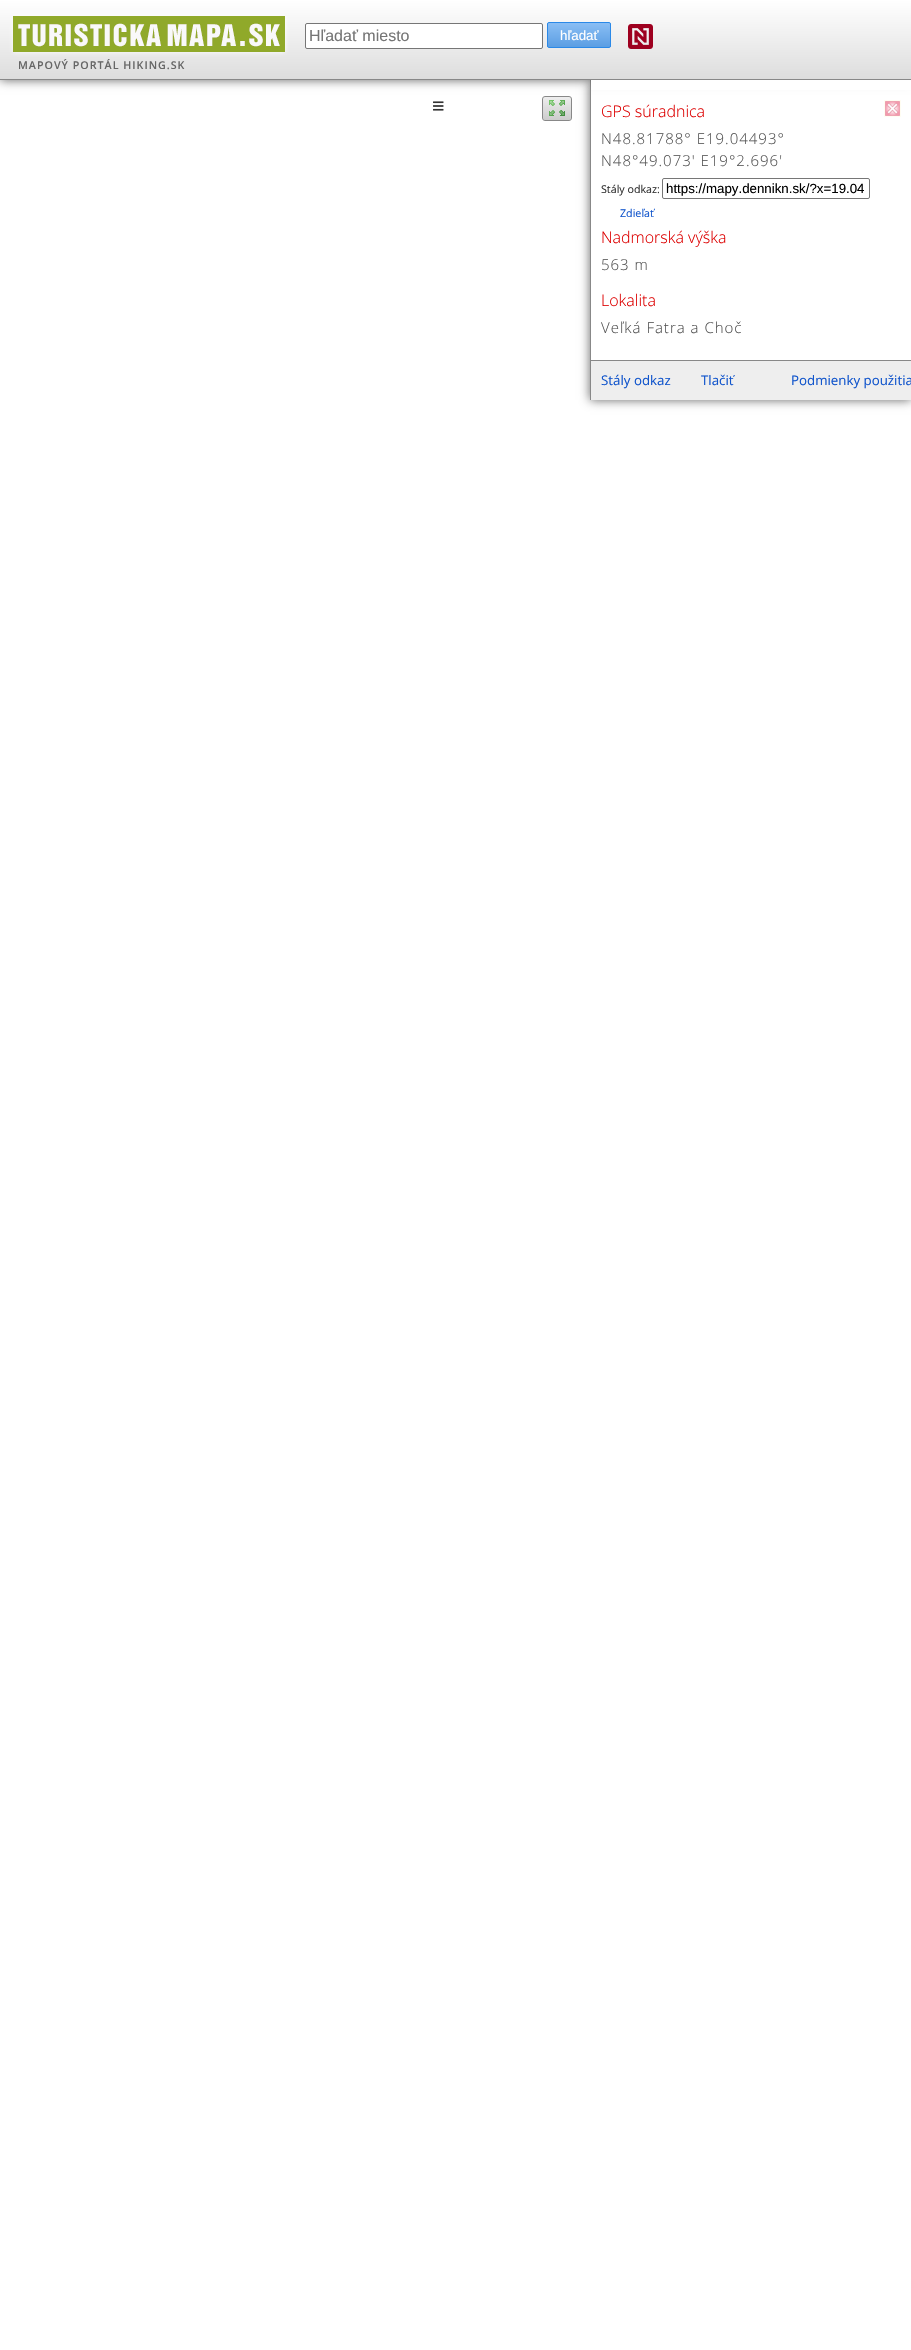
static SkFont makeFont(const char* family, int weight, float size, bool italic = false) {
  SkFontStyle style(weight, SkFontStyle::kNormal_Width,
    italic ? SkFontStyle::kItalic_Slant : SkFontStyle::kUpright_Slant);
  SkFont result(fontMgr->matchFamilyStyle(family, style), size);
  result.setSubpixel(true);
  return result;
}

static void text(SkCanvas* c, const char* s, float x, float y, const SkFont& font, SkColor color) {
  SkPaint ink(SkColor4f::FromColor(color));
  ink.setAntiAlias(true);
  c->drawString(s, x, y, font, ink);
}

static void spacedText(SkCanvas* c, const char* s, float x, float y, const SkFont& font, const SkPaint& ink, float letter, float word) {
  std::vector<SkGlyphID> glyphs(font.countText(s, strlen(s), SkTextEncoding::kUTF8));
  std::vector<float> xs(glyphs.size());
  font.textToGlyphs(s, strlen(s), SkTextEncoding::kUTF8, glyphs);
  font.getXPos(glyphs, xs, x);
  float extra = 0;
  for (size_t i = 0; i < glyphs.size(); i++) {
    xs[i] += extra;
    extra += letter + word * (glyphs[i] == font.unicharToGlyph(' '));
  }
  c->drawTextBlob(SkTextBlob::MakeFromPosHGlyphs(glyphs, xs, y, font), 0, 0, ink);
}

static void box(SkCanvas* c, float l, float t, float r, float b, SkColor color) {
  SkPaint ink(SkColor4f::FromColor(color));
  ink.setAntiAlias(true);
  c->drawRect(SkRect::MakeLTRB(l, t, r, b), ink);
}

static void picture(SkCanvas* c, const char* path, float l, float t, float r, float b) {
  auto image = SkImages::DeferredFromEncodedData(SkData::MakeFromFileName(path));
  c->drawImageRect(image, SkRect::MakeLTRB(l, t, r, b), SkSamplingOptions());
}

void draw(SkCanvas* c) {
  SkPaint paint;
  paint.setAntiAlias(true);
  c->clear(0xffffffff);
  c->save();
  c->clipPath(SkPathBuilder(SkPathFillType::kEvenOdd).moveTo(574, 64).lineTo(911, 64).lineTo(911, 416).lineTo(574, 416).close().moveTo(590, 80).lineTo(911, 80).lineTo(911, 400).lineTo(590, 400).close().detach(), true);
  paint.setColor(0xff666666);
  paint.setMaskFilter(SkMaskFilter::MakeBlur(kNormal_SkBlurStyle, 5));
  c->drawRect(SkRect::MakeLTRB(590, 80, 911, 400), paint);
  paint.setMaskFilter(nullptr);
  c->restore();
  box(c, 590, 80, 591, 400, 0xff888888);
  paint.setMaskFilter(SkMaskFilter::MakeBlur(kNormal_SkBlurStyle, 5));
  c->drawRect(SkRect::MakeLTRB(0, 0, 911, 80), paint);
  paint.setMaskFilter(nullptr);
  {
    const SkColor colors[] = {0xffffffff, 0xffdddddd};
    const float stops[] = {0, 1};
    const SkPoint ends[] = {{0, 0}, {0, 79}};
    paint.setShader(SkGradientShader::MakeLinear(ends, colors, stops, 2, SkTileMode::kClamp));
    paint.setAlpha(255);
  }
  c->drawRect(SkRect::MakeLTRB(0, 0, 911, 79), paint);
  box(c, 0, 79, 911, 80, 0xff888888);
  paint.setShader(nullptr);
  paint.setColor(0xffffffff);
  c->drawRoundRect(SkRect::MakeLTRB(305.5f, 23.5f, 542.5f, 48.5f), 1.5f, 1.5f, paint);
  paint.setStyle(SkPaint::kStroke_Style);
  paint.setStrokeWidth(1);
  paint.setColor(0xff767676);
  c->drawRoundRect(SkRect::MakeLTRB(305.5f, 23.5f, 542.5f, 48.5f), 1.5f, 1.5f, paint);
  SkFont face1 = makeFont("Liberation Sans", 400, 16);
  text(c, "Hľadať miesto", 309, 41, face1, 0xff757575);
  c->save();
  c->clipPath(SkPathBuilder().moveTo(549, 22).lineTo(609, 22).cubicTo(610, 22, 611, 23, 611, 24).lineTo(611, 46).cubicTo(611, 47, 610, 48, 609, 48).lineTo(549, 48).cubicTo(548, 48, 547, 47, 547, 46).lineTo(547, 24).cubicTo(547, 23, 548, 22, 549, 22).close().detach(), true);
  paint.setStyle(SkPaint::kFill_Style);
  {
    const SkColor colors[] = {0xff8abef4, 0xff5b9ee3};
    const float stops[] = {0, 1};
    const SkPoint ends[] = {{548, 23}, {548, 47}};
    paint.setShader(SkGradientShader::MakeLinear(ends, colors, stops, 2, SkTileMode::kClamp));
    paint.setAlpha(255);
  }
  c->drawRect(SkRect::MakeLTRB(547, 23, 611, 47), paint);
  c->restore();
  paint.setStyle(SkPaint::kStroke_Style);
  paint.setShader(nullptr);
  paint.setColor(0xff2a89e8);
  c->drawRoundRect(SkRect::MakeLTRB(547.5f, 22.5f, 610.5f, 47.5f), 1.5f, 1.5f, paint);
  SkFont face2 = makeFont("Liberation Sans", 400, 13.3f);
  text(c, "hľadať", 560, 40, face2, 0xffffffff);
  picture(c, "img_01.png", 628, 24, 653, 49);
  paint.setStyle(SkPaint::kFill_Style);
  paint.setColor(0xffffffff);
  paint.setMaskFilter(SkMaskFilter::MakeBlur(kNormal_SkBlurStyle, 2.5f));
  c->drawRect(SkRect::MakeLTRB(13, 16, 285, 52), paint);
  paint.setMaskFilter(nullptr);
  picture(c, "img_02.png", 13, 16, 285, 52);
  SkFont face3 = makeFont("Open Sans", 600, 10.7f);
  paint.setColor(0xff666666);
  spacedText(c, "MAPOVÝ PORTÁL HIKING.SK", 18, 69, face3, paint, 1, 0);
  box(c, 591, 80, 911, 90, 0xffffffff);
  picture(c, "img_03.png", 433, 101, 444, 111);
  {
    const SkColor colors[] = {0xffeeeeee, 0xffcccccc};
    const float stops[] = {0, 1};
    const SkPoint ends[] = {{543, 97}, {543, 120}};
    paint.setShader(SkGradientShader::MakeLinear(ends, colors, stops, 2, SkTileMode::kClamp));
    paint.setAlpha(255);
  }
  c->drawRoundRect(SkRect::MakeLTRB(543, 97, 571, 120), 2, 2, paint);
  picture(c, "img_04.png", 549, 100, 565, 116);
  paint.setStyle(SkPaint::kStroke_Style);
  paint.setShader(nullptr);
  paint.setColor(0xff888888);
  c->drawRoundRect(SkRect::MakeLTRB(542.5f, 96.5f, 571.5f, 120.5f), 2.5f, 2.5f, paint);
  SkFont face4 = makeFont("Open Sans", 300, 16);
  text(c, "GPS súradnica", 601, 117, face4, 0xffdd0000);
  SkFont face5 = makeFont("Open Sans", 300, 15);
  paint.setStyle(SkPaint::kFill_Style);
  paint.setColor(0xff555555);
  spacedText(c, "N48.81788° E19.04493°", 601, 144, face5, paint, 1, 0);
  spacedText(c, "N48°49.073' E19°2.696'", 601, 166, face5, paint, 1, 0);
  SkFont face6 = makeFont("Open Sans", 400, 10.7f);
  text(c, "Stály odkaz:", 601, 193, face6, 0xff333333);
  paint.setStyle(SkPaint::kStroke_Style);
  paint.setColor(0xff767676);
  c->drawRoundRect(SkRect::MakeLTRB(662.5f, 178.5f, 869.5f, 198.5f), 1.5f, 1.5f, paint);
  text(c, "https://mapy.dennikn.sk/?x=19.04", 666, 193, face2, 0xff000000);
  text(c, "Zdieľať", 620, 217, face6, 0xff1155cc);
  text(c, "Nadmorská výška", 601, 243, face4, 0xffdd0000);
  paint.setStyle(SkPaint::kFill_Style);
  paint.setColor(0xff555555);
  spacedText(c, "563 m", 601, 270, face5, paint, 1, 0);
  text(c, "Lokalita", 601, 306, face4, 0xffdd0000);
  spacedText(c, "Veľká Fatra a Choč", 601, 333, face5, paint, 1, 0);
  picture(c, "img_05.png", 884, 100, 901, 117);
  box(c, 591, 361, 911, 400, 0xffeeeeee);
  box(c, 591, 360, 911, 361, 0xff888888);
  SkFont face7 = makeFont("Open Sans", 400, 13.3f);
  text(c, "Stály odkaz", 601, 385, face7, 0xff1155cc);
  text(c, "Tlačiť", 701, 385, face7, 0xff1155cc);
  text(c, "Podmienky použitia", 791, 385, face7, 0xff1155cc);
}
